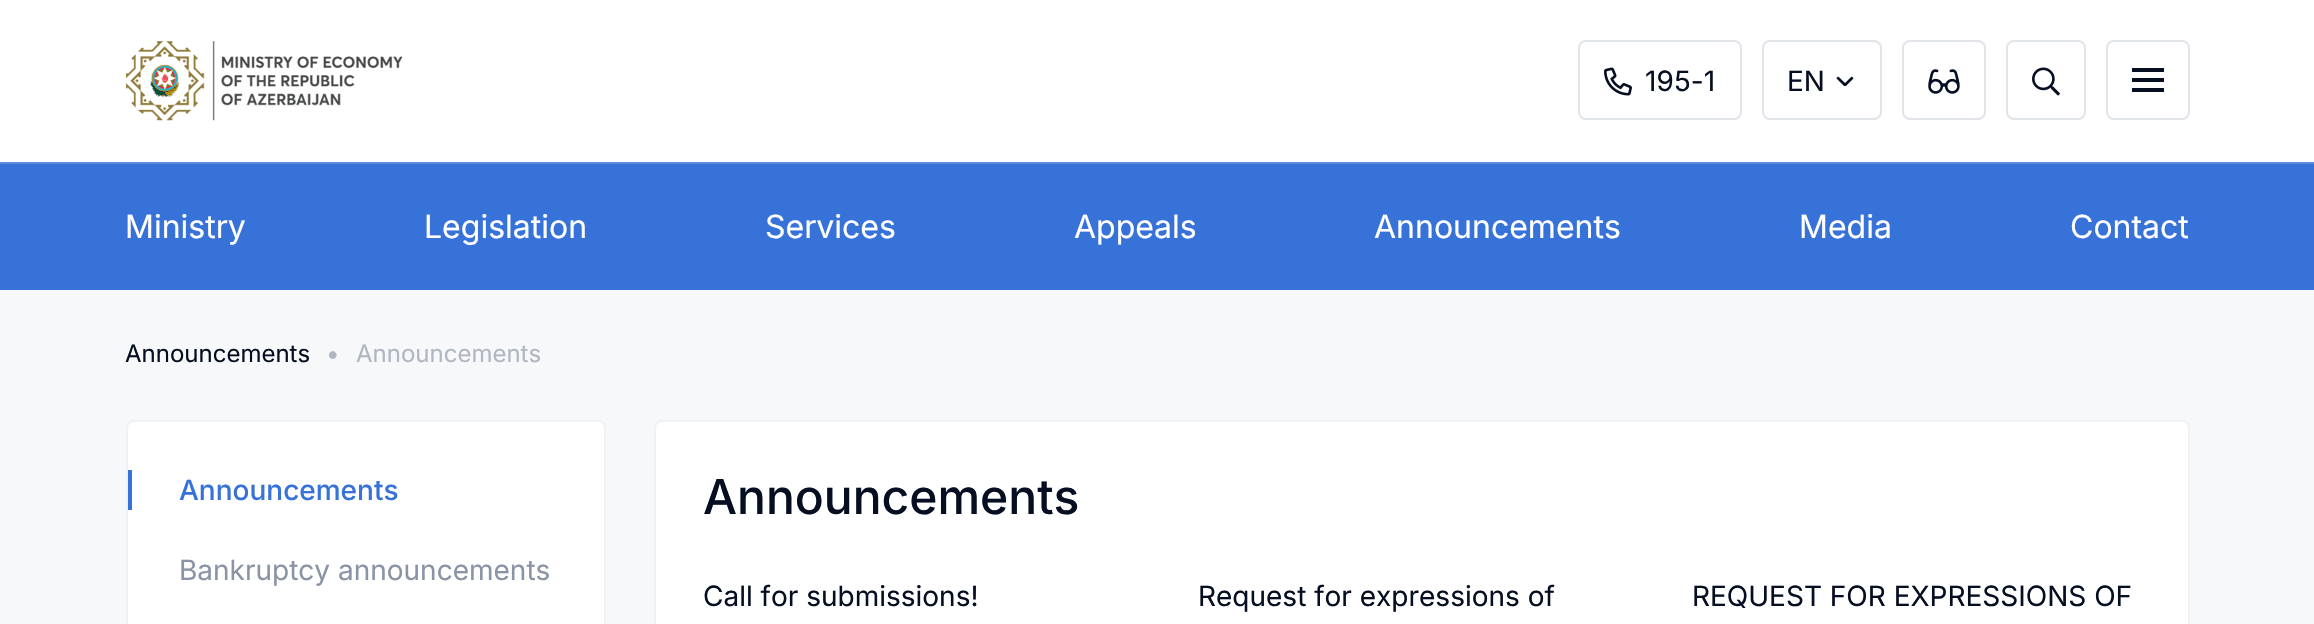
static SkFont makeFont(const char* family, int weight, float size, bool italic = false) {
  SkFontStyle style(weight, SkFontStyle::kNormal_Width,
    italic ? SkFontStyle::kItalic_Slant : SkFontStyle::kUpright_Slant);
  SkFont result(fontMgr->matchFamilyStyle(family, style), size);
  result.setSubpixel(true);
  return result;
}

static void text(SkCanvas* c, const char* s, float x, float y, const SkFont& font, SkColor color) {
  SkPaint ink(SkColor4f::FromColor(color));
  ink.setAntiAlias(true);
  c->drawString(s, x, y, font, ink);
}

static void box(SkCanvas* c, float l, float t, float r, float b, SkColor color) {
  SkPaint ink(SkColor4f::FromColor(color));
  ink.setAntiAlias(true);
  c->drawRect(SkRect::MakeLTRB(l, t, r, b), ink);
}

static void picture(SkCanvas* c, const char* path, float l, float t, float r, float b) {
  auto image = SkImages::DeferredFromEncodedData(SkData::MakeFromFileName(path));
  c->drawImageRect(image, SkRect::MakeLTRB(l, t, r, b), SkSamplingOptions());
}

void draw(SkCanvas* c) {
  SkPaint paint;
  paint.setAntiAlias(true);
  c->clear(0xfff7f8f9);
  box(c, 0, 0, 2314, 162, 0xffffffff);
  picture(c, "img_01.png", 125, 41, 402, 121);
  paint.setStyle(SkPaint::kStroke_Style);
  paint.setStrokeWidth(2);
  paint.setColor(0xffe1e4e8);
  c->drawRoundRect(SkRect::MakeLTRB(1579, 41, 1741, 119), 7, 7, paint);
  picture(c, "img_02.png", 1604, 67, 1632, 96);
  SkFont face1 = makeFont("Inter", 400, 28);
  text(c, "195-1", 1645, 91, face1, 0xff050f21);
  c->drawRoundRect(SkRect::MakeLTRB(1763, 41, 1881, 119), 7, 7, paint);
  text(c, "EN", 1787, 91, face1, 0xff050f21);
  picture(c, "img_03.png", 1836, 76, 1854, 86);
  c->drawRoundRect(SkRect::MakeLTRB(1903, 41, 1985, 119), 7, 7, paint);
  picture(c, "img_04.png", 1928, 69, 1960, 94);
  c->drawRoundRect(SkRect::MakeLTRB(2007, 41, 2085, 119), 7, 7, paint);
  picture(c, "img_05.png", 2032, 67, 2060, 96);
  c->drawRoundRect(SkRect::MakeLTRB(2107, 41, 2189, 119), 7, 7, paint);
  box(c, 2132, 78, 2164, 82, 0xff050f21);
  box(c, 2132, 68, 2164, 72, 0xff050f21);
  box(c, 2132, 88, 2164, 92, 0xff050f21);
  box(c, 0, 162, 2314, 290, 0xff3772d9);
  box(c, 0, 162, 2314, 164, 0x1affffff);
  box(c, 0, 162, 2314, 164, 0x1af1f2f4);
  SkFont face2 = makeFont("Inter", 400, 32);
  text(c, "Ministry", 125, 238, face2, 0xffffffff);
  text(c, "Legislation", 424, 238, face2, 0xffffffff);
  text(c, "Services", 765, 238, face2, 0xffffffff);
  text(c, "Appeals", 1074, 238, face2, 0xffffffff);
  text(c, "Announcements", 1374, 238, face2, 0xffffffff);
  text(c, "Media", 1799, 238, face2, 0xffffffff);
  text(c, "Contact", 2070, 238, face2, 0xffffffff);
  SkFont face3 = makeFont("Inter", 400, 24);
  text(c, "Announcements", 125, 362, face3, 0xff050f21);
  text(c, "•", 326, 362, face3, 0xffb0b7c3);
  text(c, "Announcements", 356, 362, face3, 0xffb0b7c3);
  paint.setStyle(SkPaint::kFill_Style);
  paint.setColor(0xffffffff);
  c->drawRoundRect(SkRect::MakeLTRB(127, 421, 605, 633), 7, 7, paint);
  paint.setStyle(SkPaint::kStroke_Style);
  paint.setColor(0xfff1f2f4);
  c->drawRoundRect(SkRect::MakeLTRB(127, 421, 605, 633), 7, 7, paint);
  box(c, 128, 470, 132, 510, 0xff3772d9);
  SkFont face4 = makeFont("Inter", 500, 28);
  text(c, "Announcements", 179, 500, face4, 0xff3772d9);
  text(c, "Bankruptcy announcements", 179, 580, face1, 0xff8a94a6);
  paint.setStyle(SkPaint::kFill_Style);
  paint.setColor(0xffffffff);
  c->drawRoundRect(SkRect::MakeLTRB(655, 421, 2189, 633), 7, 7, paint);
  paint.setStyle(SkPaint::kStroke_Style);
  paint.setColor(0xfff1f2f4);
  c->drawRoundRect(SkRect::MakeLTRB(655, 421, 2189, 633), 7, 7, paint);
  SkFont face5 = makeFont("Inter", 500, 48);
  text(c, "Announcements", 703, 514, face5, 0xff050f21);
  text(c, "Call for submissions!", 703, 606, face1, 0xff050f21);
  text(c, "Request for expressions of", 1198, 606, face1, 0xff050f21);
  text(c, "REQUEST FOR EXPRESSIONS OF", 1692, 606, face1, 0xff050f21);
}
